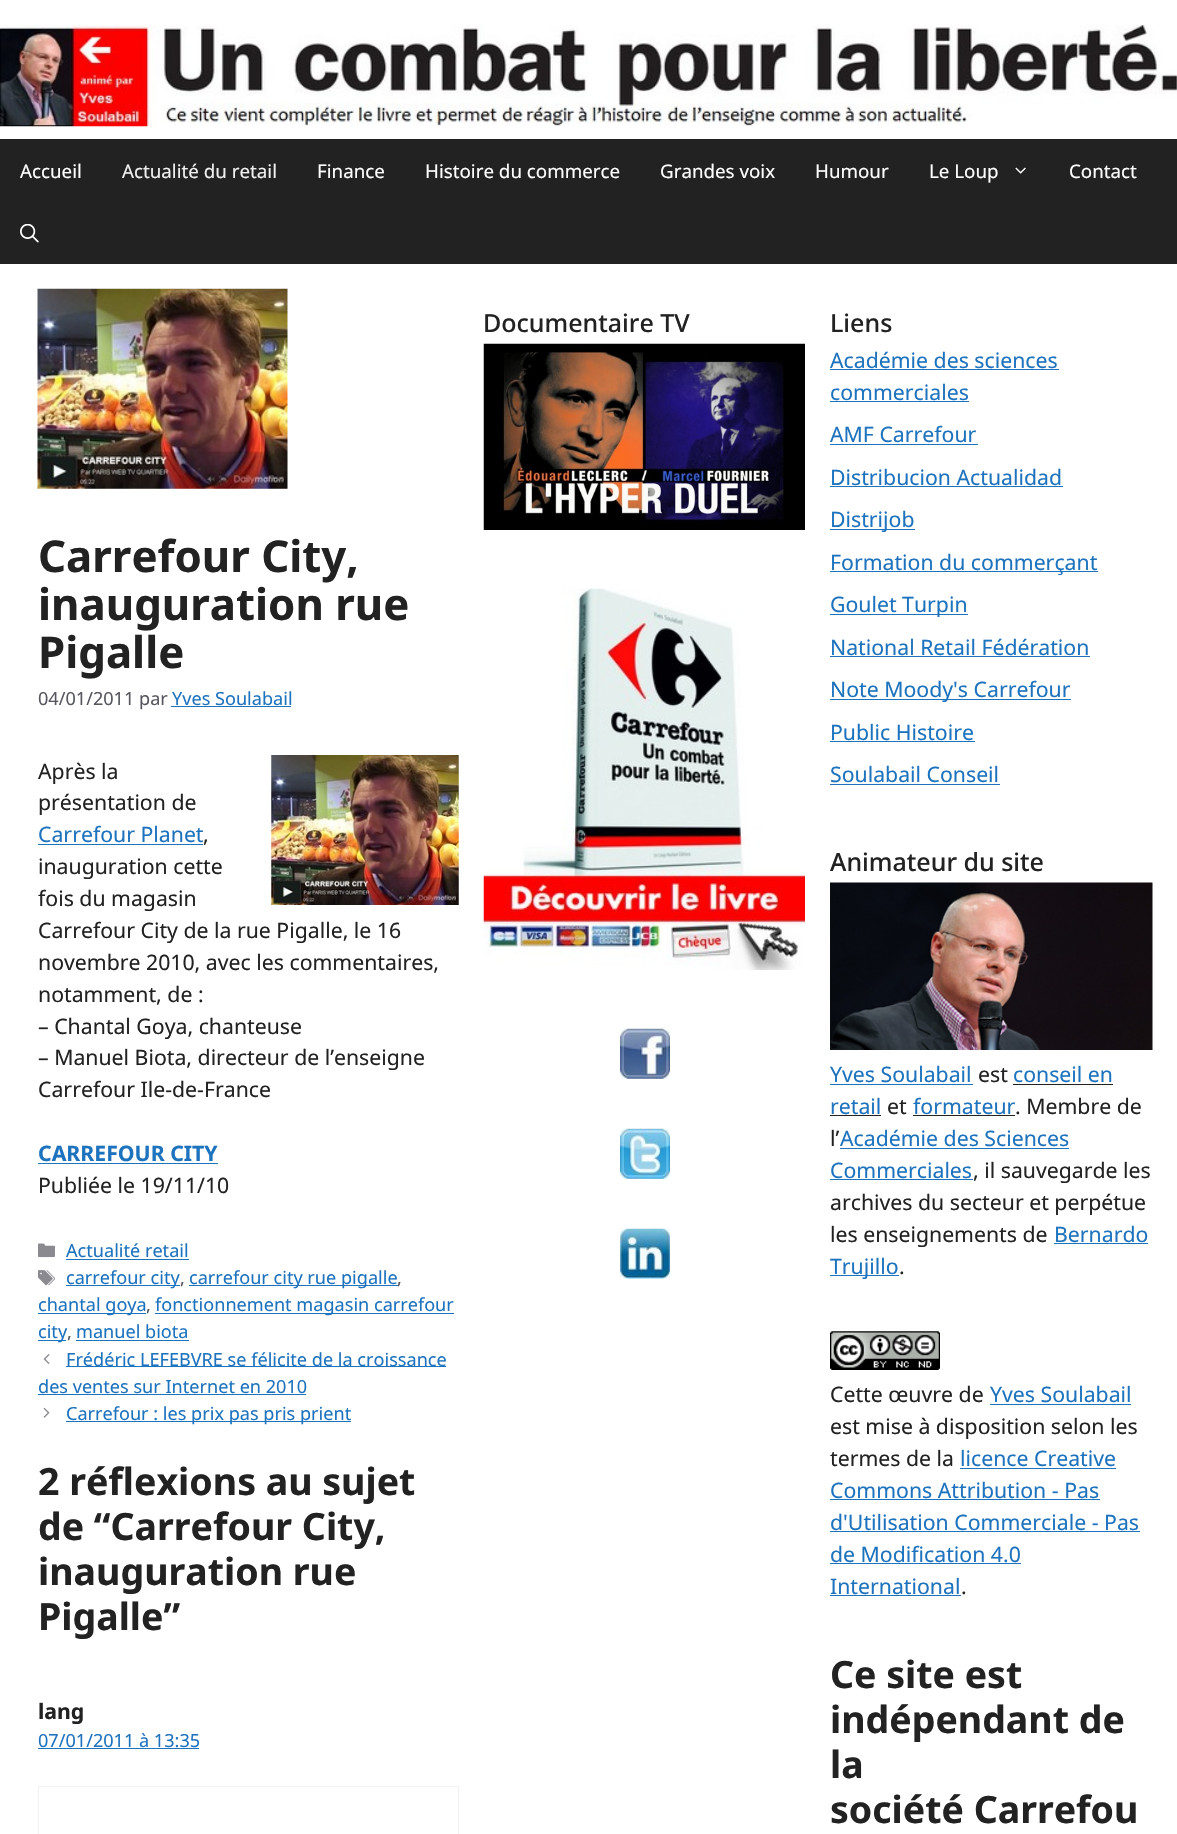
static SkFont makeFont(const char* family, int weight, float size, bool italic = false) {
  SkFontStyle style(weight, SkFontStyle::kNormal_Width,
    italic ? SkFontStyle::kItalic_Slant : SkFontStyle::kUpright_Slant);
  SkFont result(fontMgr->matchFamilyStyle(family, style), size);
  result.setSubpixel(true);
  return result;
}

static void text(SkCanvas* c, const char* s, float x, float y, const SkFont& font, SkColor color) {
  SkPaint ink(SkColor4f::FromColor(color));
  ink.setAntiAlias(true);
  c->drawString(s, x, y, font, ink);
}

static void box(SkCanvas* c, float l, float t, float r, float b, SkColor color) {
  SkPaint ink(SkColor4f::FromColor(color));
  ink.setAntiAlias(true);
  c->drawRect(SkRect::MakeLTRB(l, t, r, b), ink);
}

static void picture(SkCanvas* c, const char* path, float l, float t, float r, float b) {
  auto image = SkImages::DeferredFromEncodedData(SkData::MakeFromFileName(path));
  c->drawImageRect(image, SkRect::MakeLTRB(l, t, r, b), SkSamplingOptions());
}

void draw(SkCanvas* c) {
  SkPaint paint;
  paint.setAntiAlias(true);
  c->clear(0xff222222);
  box(c, 0, 0, 1177, 139, 0xffffffff);
  picture(c, "img_01.png", 0, 25, 1177, 127);
  SkFont face1 = makeFont("Noto Sans", 400, 18.75f);
  text(c, "Accueil", 20, 178, face1, 0xffffffff);
  text(c, "Actualité du retail", 122, 178, face1, 0xfff0f0f0);
  text(c, "Finance", 317, 178, face1, 0xffffffff);
  text(c, "Histoire du commerce", 425, 178, face1, 0xffffffff);
  text(c, "Grandes voix", 660, 178, face1, 0xffffffff);
  text(c, "Humour", 815, 178, face1, 0xffffffff);
  text(c, "Le Loup", 929, 178, face1, 0xffffffff);
  picture(c, "img_02.png", 1015, 167, 1026, 174);
  text(c, "Contact", 1069, 178, face1, 0xffffffff);
  picture(c, "img_03.png", 20, 224, 39, 243);
  box(c, 0, 264, 1177, 1834, 0xffffffff);
  picture(c, "img_04.png", 37, 288, 288, 489);
  SkFont face2 = makeFont("Noto Sans", 700, 43.75f);
  text(c, "Carrefour City,", 38, 572, face2, 0xff222222);
  text(c, "inauguration rue", 38, 620, face2, 0xff222222);
  text(c, "Pigalle", 38, 668, face2, 0xff222222);
  SkFont face3 = makeFont("Noto Sans", 400, 18.1f);
  text(c, "04/01/2011 par", 38, 705, face3, 0xff575760);
  text(c, "Yves Soulabail", 172, 705, face3, 0xff1e73be);
  box(c, 171, 706, 291, 707, 0xff1e73be);
  SkFont face4 = makeFont("Noto Sans", 400, 21.25f);
  text(c, "Après la", 38, 779, face4, 0xff222222);
  picture(c, "img_05.png", 271, 755, 459, 905);
  text(c, "présentation de", 38, 810, face4, 0xff222222);
  text(c, "Carrefour Planet", 38, 842, face4, 0xff1e73be);
  box(c, 38, 844, 203, 845, 0xff1e73be);
  text(c, ",", 203, 842, face4, 0xff222222);
  text(c, "inauguration cette", 38, 874, face4, 0xff222222);
  text(c, "fois du magasin", 38, 906, face4, 0xff222222);
  text(c, "Carrefour City de la rue Pigalle, le 16", 38, 938, face4, 0xff222222);
  text(c, "novembre 2010, avec les commentaires,", 38, 970, face4, 0xff222222);
  text(c, "notamment, de :", 38, 1002, face4, 0xff222222);
  text(c, "– Chantal Goya, chanteuse", 38, 1034, face4, 0xff222222);
  text(c, "– Manuel Biota, directeur de l’enseigne", 38, 1065, face4, 0xff222222);
  text(c, "Carrefour Ile-de-France", 38, 1097, face4, 0xff222222);
  SkFont face5 = makeFont("Noto Sans", 700, 21.25f);
  text(c, "CARREFOUR CITY", 38, 1161, face5, 0xff1e73be);
  box(c, 38, 1163, 218, 1164, 0xff1e73be);
  text(c, "Publiée le 19/11/10", 38, 1193, face4, 0xff222222);
  picture(c, "img_06.png", 38, 1243, 55, 1258);
  text(c, "Actualité retail", 66, 1257, face3, 0xff1e73be);
  box(c, 66, 1259, 189, 1260, 0xff1e73be);
  picture(c, "img_07.png", 38, 1270, 55, 1286);
  box(c, 66, 1285, 180, 1286, 0xff1e73be);
  text(c, "carrefour city", 66, 1284, face3, 0xff1e73be);
  text(c, ",", 180, 1284, face3, 0xff575760);
  box(c, 189, 1285, 398, 1286, 0xff1e73be);
  text(c, "carrefour city rue pigalle", 189, 1284, face3, 0xff1e73be);
  text(c, ",", 397, 1284, face3, 0xff575760);
  box(c, 38, 1313, 146, 1314, 0xff1e73be);
  text(c, "chantal goya", 38, 1311, face3, 0xff1e73be);
  text(c, ",", 146, 1311, face3, 0xff575760);
  box(c, 155, 1313, 454, 1314, 0xff1e73be);
  text(c, "fonctionnement magasin carrefour", 155, 1311, face3, 0xff1e73be);
  box(c, 38, 1340, 66, 1341, 0xff1e73be);
  text(c, "city", 38, 1338, face3, 0xff1e73be);
  text(c, ",", 67, 1338, face3, 0xff575760);
  text(c, "manuel biota", 76, 1338, face3, 0xff1e73be);
  box(c, 76, 1340, 189, 1341, 0xff1e73be);
  picture(c, "img_08.png", 43, 1354, 50, 1364);
  box(c, 66, 1366, 446, 1367, 0xff1e73be);
  text(c, "Frédéric LEFEBVRE se félicite de la croissance", 66, 1366, face3, 0xff1e73be);
  text(c, "des ventes sur Internet en 2010", 38, 1393, face3, 0xff1e73be);
  box(c, 38, 1394, 306, 1395, 0xff1e73be);
  picture(c, "img_09.png", 43, 1407, 50, 1418);
  box(c, 66, 1421, 351, 1422, 0xff1e73be);
  text(c, "Carrefour : les prix pas pris prient", 66, 1420, face3, 0xff1e73be);
  SkFont face6 = makeFont("Noto Sans", 700, 37.5f);
  text(c, "2 réflexions au sujet", 38, 1495, face6, 0xff222222);
  text(c, "de “Carrefour City,", 38, 1540, face6, 0xff222222);
  text(c, "inauguration rue", 38, 1585, face6, 0xff222222);
  text(c, "Pigalle”", 38, 1630, face6, 0xff222222);
  text(c, "lang", 38, 1719, face5, 0xff222222);
  text(c, "07/01/2011 à 13:35", 38, 1747, face3, 0xff1e73be);
  box(c, 38, 1748, 199, 1749, 0xff1e73be);
  paint.setStyle(SkPaint::kStroke_Style);
  paint.setStrokeWidth(1);
  paint.setColor(0xfff2f2f2);
  c->drawRect(SkRect::MakeLTRB(38.5f, 1786.5f, 458.5f, 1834.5f), paint);
  SkFont face7 = makeFont("Noto Sans", 500, 25);
  text(c, "Documentaire TV", 483, 332, face7, 0xff222222);
  picture(c, "img_10.png", 483, 343, 805, 530);
  picture(c, "img_11.png", 483, 588, 805, 970);
  picture(c, "img_12.png", 620, 1028, 670, 1079);
  picture(c, "img_13.png", 620, 1128, 670, 1179);
  picture(c, "img_14.png", 620, 1228, 670, 1279);
  text(c, "Liens", 830, 332, face7, 0xff222222);
  text(c, "Académie des sciences", 830, 368, face4, 0xff1e73be);
  box(c, 830, 369, 1059, 370, 0xff1e73be);
  text(c, "commerciales", 830, 400, face4, 0xff1e73be);
  box(c, 830, 401, 969, 402, 0xff1e73be);
  text(c, "AMF Carrefour", 830, 442, face4, 0xff1e73be);
  box(c, 830, 444, 978, 445, 0xff1e73be);
  text(c, "Distribucion Actualidad", 830, 485, face4, 0xff1e73be);
  box(c, 830, 486, 1063, 487, 0xff1e73be);
  box(c, 830, 529, 915, 530, 0xff1e73be);
  text(c, "Distrijob", 830, 527, face4, 0xff1e73be);
  box(c, 830, 571, 1098, 572, 0xff1e73be);
  text(c, "Formation du commerçant", 830, 570, face4, 0xff1e73be);
  box(c, 830, 614, 968, 615, 0xff1e73be);
  text(c, "Goulet Turpin", 830, 612, face4, 0xff1e73be);
  text(c, "National Retail Fédération", 830, 655, face4, 0xff1e73be);
  box(c, 830, 656, 1090, 657, 0xff1e73be);
  box(c, 830, 699, 1071, 700, 0xff1e73be);
  text(c, "Note Moody's Carrefour", 830, 697, face4, 0xff1e73be);
  text(c, "Public Histoire", 830, 740, face4, 0xff1e73be);
  box(c, 830, 741, 975, 742, 0xff1e73be);
  text(c, "Soulabail Conseil", 830, 782, face4, 0xff1e73be);
  box(c, 830, 784, 1000, 785, 0xff1e73be);
  text(c, "Animateur du site", 830, 871, face7, 0xff222222);
  picture(c, "img_15.png", 830, 882, 1153, 1050);
  text(c, "Yves Soulabail", 830, 1082, face4, 0xff1e73be);
  box(c, 830, 1084, 973, 1085, 0xff1e73be);
  text(c, "est", 978, 1082, face4, 0xff222222);
  text(c, "conseil en", 1013, 1082, face4, 0xff1e73be);
  box(c, 1013, 1084, 1113, 1085, 0xff222222);
  text(c, "retail", 830, 1114, face4, 0xff1e73be);
  box(c, 830, 1115, 881, 1116, 0xff222222);
  text(c, "et", 887, 1114, face4, 0xff222222);
  text(c, "formateur", 913, 1114, face4, 0xff1e73be);
  box(c, 913, 1115, 1015, 1116, 0xff222222);
  text(c, ". Membre de", 1015, 1114, face4, 0xff222222);
  text(c, "l’", 830, 1146, face4, 0xff222222);
  text(c, "Académie des Sciences", 840, 1146, face4, 0xff1e73be);
  box(c, 840, 1148, 1069, 1149, 0xff1e73be);
  text(c, "Commerciales", 830, 1178, face4, 0xff1e73be);
  box(c, 830, 1179, 973, 1180, 0xff1e73be);
  text(c, ", il sauvegarde les", 973, 1178, face4, 0xff222222);
  text(c, "archives du secteur et perpétue", 830, 1210, face4, 0xff222222);
  text(c, "les enseignements de", 830, 1242, face4, 0xff222222);
  text(c, "Bernardo", 1054, 1242, face4, 0xff1e73be);
  box(c, 1054, 1243, 1148, 1244, 0xff1e73be);
  box(c, 830, 1275, 899, 1276, 0xff1e73be);
  text(c, "Trujillo", 830, 1274, face4, 0xff1e73be);
  text(c, ".", 899, 1274, face4, 0xff222222);
  picture(c, "img_16.png", 830, 1331, 940, 1370);
  text(c, "Cette œuvre de", 830, 1402, face4, 0xff222222);
  text(c, "Yves Soulabail", 990, 1402, face4, 0xff1e73be);
  box(c, 990, 1404, 1131, 1405, 0xff1e73be);
  text(c, "est mise à disposition selon les", 830, 1434, face4, 0xff222222);
  text(c, "termes de la", 830, 1466, face4, 0xff222222);
  text(c, "licence Creative", 960, 1466, face4, 0xff1e73be);
  box(c, 960, 1468, 1116, 1469, 0xff1e73be);
  text(c, "Commons Attribution - Pas", 830, 1498, face4, 0xff1e73be);
  box(c, 830, 1499, 1100, 1500, 0xff1e73be);
  text(c, "d'Utilisation Commerciale - Pas", 830, 1530, face4, 0xff1e73be);
  box(c, 830, 1531, 1140, 1532, 0xff1e73be);
  text(c, "de Modification 4.0", 830, 1562, face4, 0xff1e73be);
  box(c, 830, 1563, 1021, 1564, 0xff1e73be);
  text(c, "International", 830, 1594, face4, 0xff1e73be);
  box(c, 830, 1595, 961, 1596, 0xff1e73be);
  text(c, ".", 961, 1594, face4, 0xff222222);
  text(c, "Ce site est", 830, 1688, face6, 0xff222222);
  text(c, "indépendant de", 830, 1733, face6, 0xff222222);
  text(c, "la", 830, 1778, face6, 0xff222222);
  text(c, "société Carrefou", 830, 1823, face6, 0xff222222);
}
